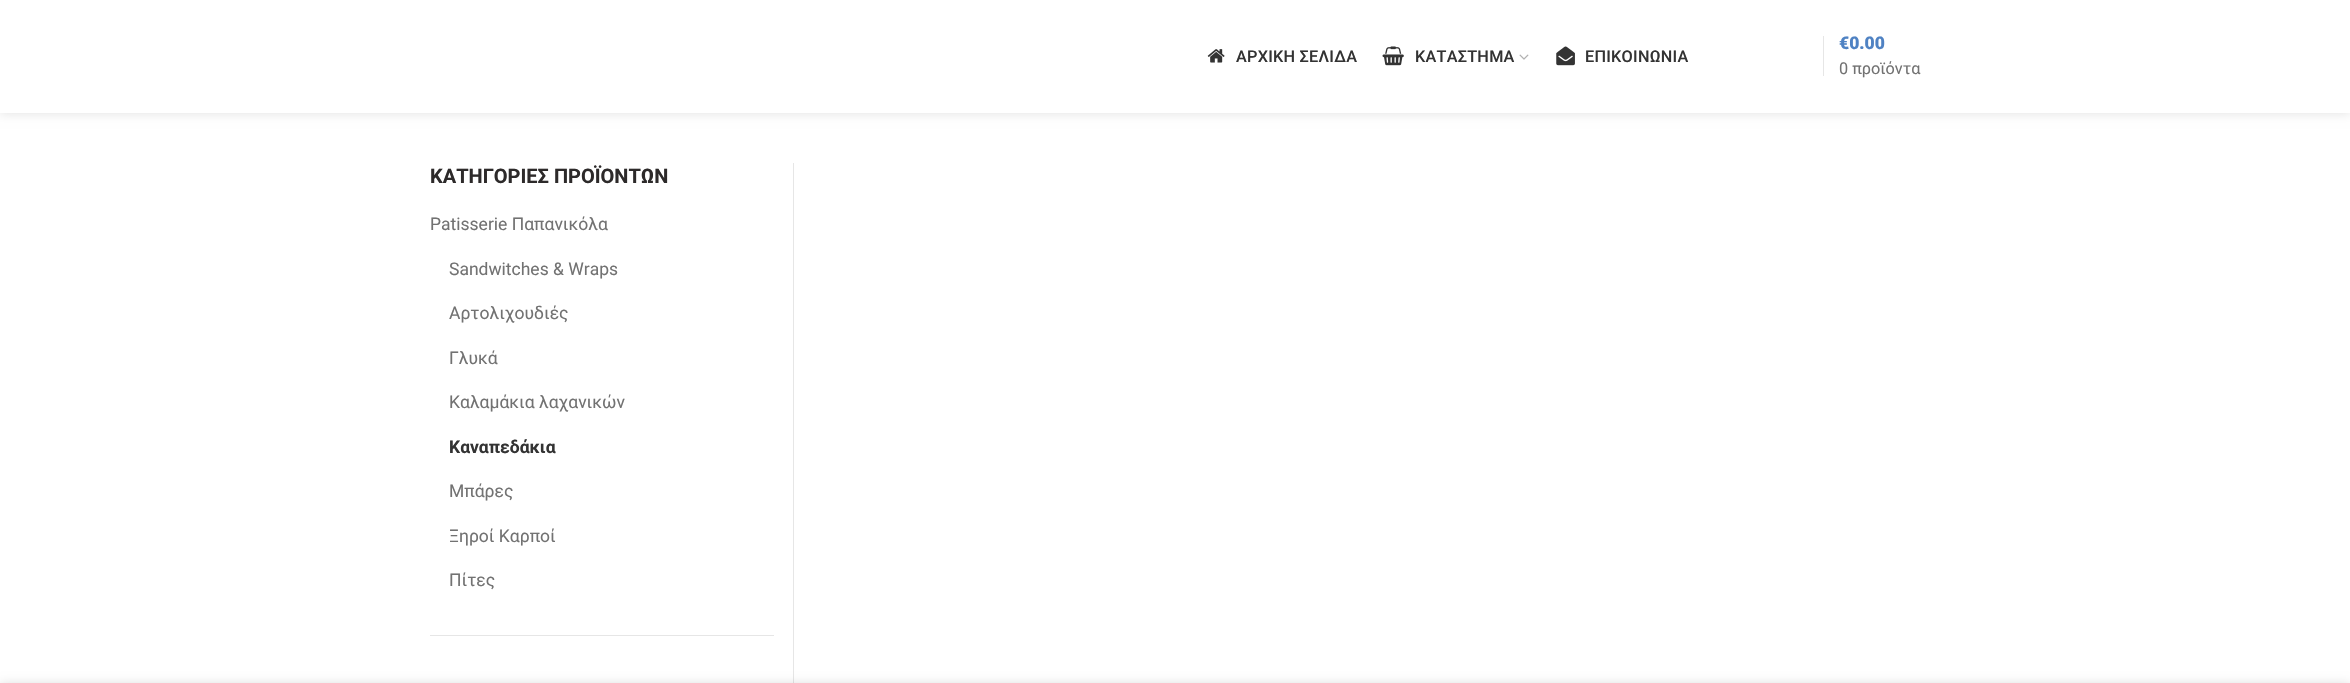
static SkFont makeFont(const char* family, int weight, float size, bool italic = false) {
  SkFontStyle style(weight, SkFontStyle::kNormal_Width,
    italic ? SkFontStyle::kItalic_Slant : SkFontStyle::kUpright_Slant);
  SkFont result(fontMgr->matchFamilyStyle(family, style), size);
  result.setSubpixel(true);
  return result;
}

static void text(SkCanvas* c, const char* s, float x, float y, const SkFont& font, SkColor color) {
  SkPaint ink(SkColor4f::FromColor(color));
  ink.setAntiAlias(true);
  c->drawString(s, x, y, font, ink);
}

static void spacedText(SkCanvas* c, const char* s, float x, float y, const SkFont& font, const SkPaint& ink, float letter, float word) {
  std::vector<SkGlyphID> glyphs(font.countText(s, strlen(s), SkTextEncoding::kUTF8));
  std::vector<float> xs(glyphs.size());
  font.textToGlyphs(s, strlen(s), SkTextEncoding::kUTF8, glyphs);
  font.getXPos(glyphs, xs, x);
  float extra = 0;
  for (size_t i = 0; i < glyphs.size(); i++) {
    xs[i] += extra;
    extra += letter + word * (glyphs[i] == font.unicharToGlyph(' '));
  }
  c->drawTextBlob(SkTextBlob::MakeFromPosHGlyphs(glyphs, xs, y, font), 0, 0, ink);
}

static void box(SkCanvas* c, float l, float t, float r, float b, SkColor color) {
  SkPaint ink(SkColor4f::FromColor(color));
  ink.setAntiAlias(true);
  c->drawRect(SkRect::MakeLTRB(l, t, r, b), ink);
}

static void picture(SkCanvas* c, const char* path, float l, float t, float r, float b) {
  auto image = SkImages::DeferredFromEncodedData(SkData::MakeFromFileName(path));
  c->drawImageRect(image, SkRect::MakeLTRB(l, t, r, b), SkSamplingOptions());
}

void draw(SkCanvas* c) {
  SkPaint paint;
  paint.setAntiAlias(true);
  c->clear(0xffffffff);
  paint.setColor(0x1a000000);
  paint.setMaskFilter(SkMaskFilter::MakeBlur(kNormal_SkBlurStyle, 5));
  c->drawRect(SkRect::MakeLTRB(0, 1, 2350, 114), paint);
  paint.setMaskFilter(nullptr);
  box(c, 0, 0, 2350, 113, 0xffffffff);
  picture(c, "img_01.png", 1207, 49, 1225, 63);
  SkFont face1 = makeFont("Roboto", 500, 16.25f);
  paint.setColor(0xff333333);
  spacedText(c, "ΑΡΧΙΚΗ ΣΕΛΙΔΑ", 1236, 62, face1, paint, 0.25f, 0);
  picture(c, "img_02.png", 1382, 46, 1404, 66);
  spacedText(c, "ΚΑΤΑΣΤΗΜΑ", 1415, 62, face1, paint, 0.25f, 0);
  picture(c, "img_03.png", 1519, 54, 1529, 60);
  picture(c, "img_04.png", 1556, 46, 1575, 66);
  spacedText(c, "ΕΠΙΚΟΙΝΩΝΙΑ", 1585, 62, face1, paint, 0.25f, 0);
  box(c, 1823, 36, 1824, 76, 0xffe6e6e6);
  SkFont face2 = makeFont("Roboto", 900, 17.5f);
  text(c, "€0.00", 1839, 49, face2, 0xff4f82c3);
  SkFont face3 = makeFont("Roboto", 400, 16.25f);
  text(c, "0 προϊόντα", 1839, 74, face3, 0xff727272);
  box(c, 793, 163, 794, 683, 0xffe6e6e6);
  box(c, 430, 635, 774, 636, 0xffe6e6e6);
  SkFont face4 = makeFont("Roboto", 700, 20);
  text(c, "ΚΑΤΗΓΟΡΙΕΣ ΠΡΟΪΟΝΤΩΝ", 430, 183, face4, 0xff2d2a2a);
  SkFont face5 = makeFont("Roboto", 400, 17.5f);
  text(c, "Patisserie Παπανικόλα", 430, 230, face5, 0xff727272);
  text(c, "Sandwitches & Wraps", 449, 275, face5, 0xff727272);
  text(c, "Αρτολιχουδιές", 449, 319, face5, 0xff727272);
  text(c, "Γλυκά", 449, 364, face5, 0xff727272);
  text(c, "Καλαμάκια λαχανικών", 449, 408, face5, 0xff727272);
  SkFont face6 = makeFont("Roboto", 700, 17.5f);
  text(c, "Καναπεδάκια", 449, 453, face6, 0xff333333);
  text(c, "Μπάρες", 449, 497, face5, 0xff727272);
  text(c, "Ξηροί Καρποί", 449, 542, face5, 0xff727272);
  text(c, "Πίτες", 449, 586, face5, 0xff727272);
  paint.setColor(0x24000000);
  paint.setMaskFilter(SkMaskFilter::MakeBlur(kNormal_SkBlurStyle, 5.5f));
  c->drawRect(SkRect::MakeLTRB(0, 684, 2350, 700), paint);
  paint.setMaskFilter(nullptr);
}
